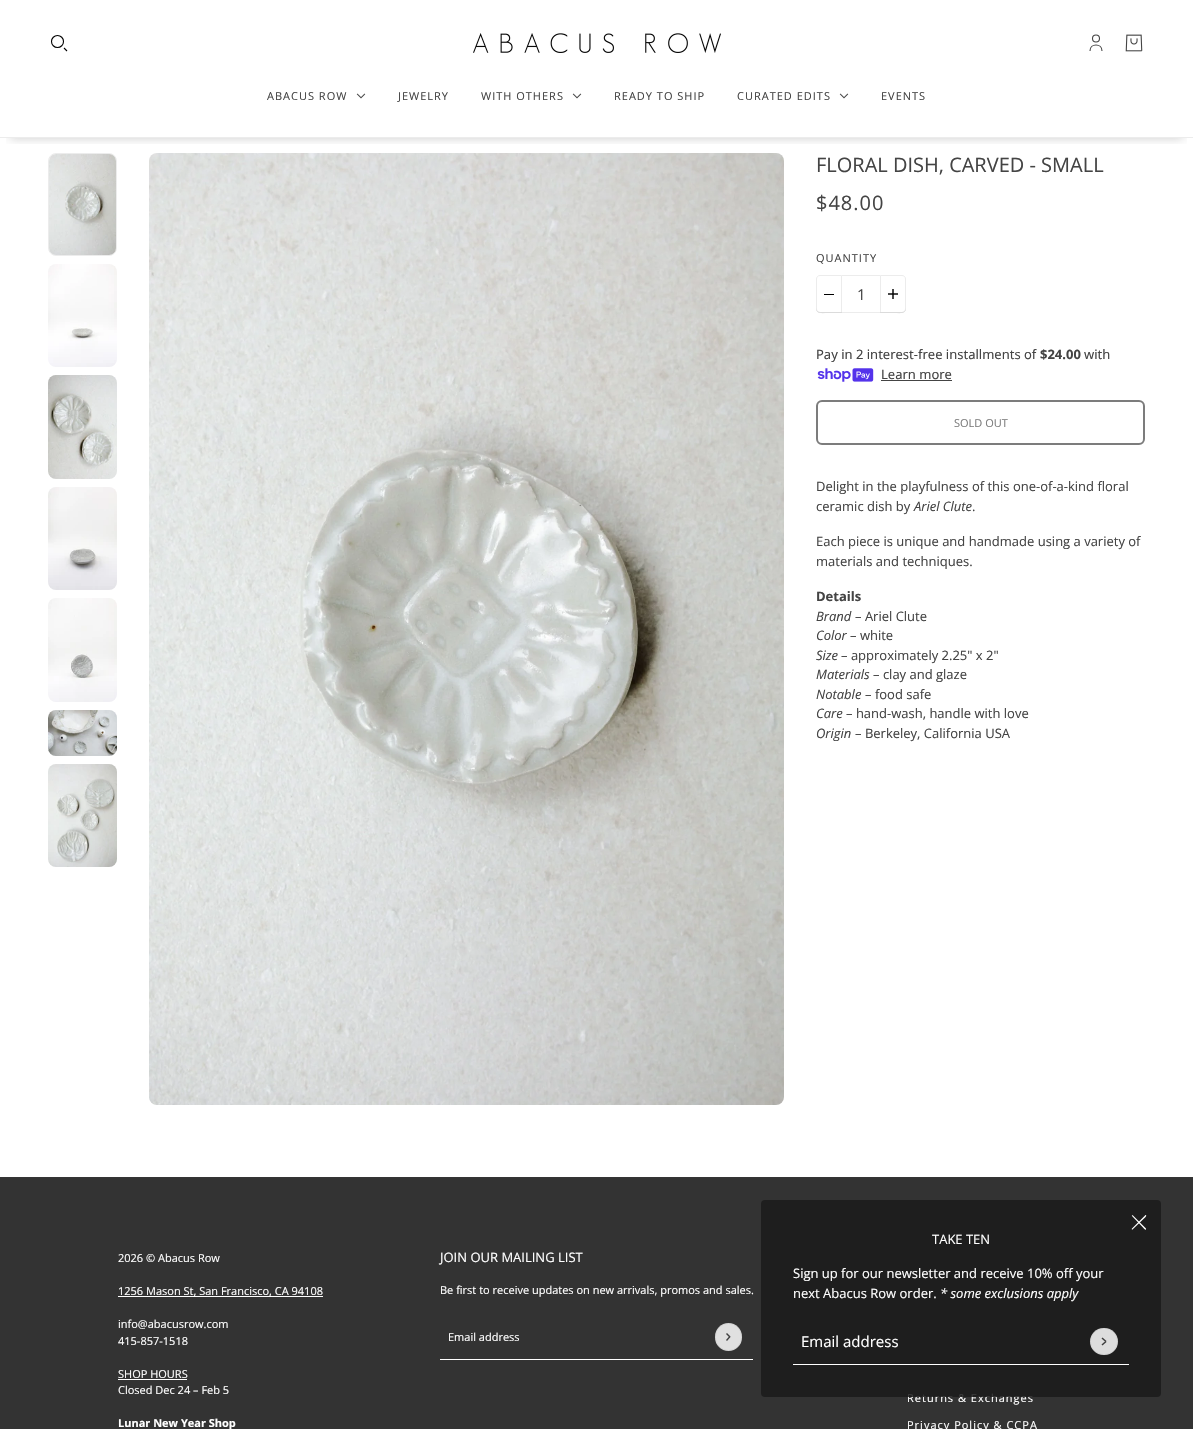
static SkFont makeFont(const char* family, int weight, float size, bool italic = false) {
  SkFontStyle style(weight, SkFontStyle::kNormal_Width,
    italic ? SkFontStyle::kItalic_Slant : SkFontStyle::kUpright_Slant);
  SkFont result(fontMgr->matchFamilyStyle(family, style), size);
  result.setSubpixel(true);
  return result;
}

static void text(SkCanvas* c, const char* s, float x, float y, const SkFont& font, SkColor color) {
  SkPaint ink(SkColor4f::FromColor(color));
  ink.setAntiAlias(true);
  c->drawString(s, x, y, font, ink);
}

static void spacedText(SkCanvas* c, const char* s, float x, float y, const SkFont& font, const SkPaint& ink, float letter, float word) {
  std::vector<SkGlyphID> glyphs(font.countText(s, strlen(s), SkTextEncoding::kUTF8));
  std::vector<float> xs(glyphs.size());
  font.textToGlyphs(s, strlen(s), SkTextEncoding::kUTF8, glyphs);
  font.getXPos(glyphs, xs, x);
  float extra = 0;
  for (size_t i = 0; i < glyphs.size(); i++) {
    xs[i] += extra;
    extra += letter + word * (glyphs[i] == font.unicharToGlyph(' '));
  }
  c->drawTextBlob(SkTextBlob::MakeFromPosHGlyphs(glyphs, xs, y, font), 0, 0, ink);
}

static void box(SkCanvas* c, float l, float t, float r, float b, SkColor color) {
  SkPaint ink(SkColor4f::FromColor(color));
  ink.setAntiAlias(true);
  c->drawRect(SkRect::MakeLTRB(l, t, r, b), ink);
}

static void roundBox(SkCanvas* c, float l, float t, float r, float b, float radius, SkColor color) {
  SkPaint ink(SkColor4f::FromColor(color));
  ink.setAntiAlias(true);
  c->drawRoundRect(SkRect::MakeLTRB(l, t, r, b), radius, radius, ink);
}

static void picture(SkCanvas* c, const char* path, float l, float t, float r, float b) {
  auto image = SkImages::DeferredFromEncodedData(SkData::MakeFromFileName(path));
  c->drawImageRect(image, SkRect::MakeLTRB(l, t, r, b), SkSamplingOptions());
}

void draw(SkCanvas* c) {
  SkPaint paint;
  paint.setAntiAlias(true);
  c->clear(0xffffffff);
  paint.setStyle(SkPaint::kStroke_Style);
  paint.setStrokeWidth(1);
  paint.setColor(0xffececec);
  c->drawRoundRect(SkRect::MakeLTRB(48.5f, 153.5f, 116.5f, 255.5f), 7.5f, 7.5f, paint);
  picture(c, "img_11.png", 149, 153, 784, 1105);
  c->save();
  c->clipRect(SkRect::MakeLTRB(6, 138, 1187, 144));
  paint.setStyle(SkPaint::kFill_Style);
  paint.setColor(0x33000000);
  paint.setMaskFilter(SkMaskFilter::MakeBlur(kNormal_SkBlurStyle, 5));
  c->drawRect(SkRect::MakeLTRB(10, 20, 1183, 138), paint);
  paint.setMaskFilter(nullptr);
  c->restore();
  paint.setStyle(SkPaint::kStroke_Style);
  paint.setStrokeWidth(1.1f);
  paint.setColor(0xff000000);
  c->drawCircle(57.5f, 41.5f, 6, paint);
  c->drawPath(SkPathBuilder().moveTo(64, 48).lineTo(67, 51).detach(), paint);
  picture(c, "img_01.png", 473, 33, 721, 53);
  paint.setColor(0xff444444);
  c->drawCircle(1096, 38.5f, 3.5f, paint);
  c->drawPath(SkPathBuilder().moveTo(1090, 51).cubicTo(1090, 43, 1102, 43, 1102, 51).detach(), paint);
  picture(c, "img_02.png", 1125, 34, 1143, 52);
  SkFont face1 = makeFont("Open Sans", 400, 11);
  paint.setStyle(SkPaint::kFill_Style);
  spacedText(c, "ABACUS ROW", 267, 100, face1, paint, 1, 0);
  picture(c, "img_03.png", 356, 93, 366, 99);
  spacedText(c, "JEWELRY", 398, 100, face1, paint, 1, 0);
  spacedText(c, "WITH OTHERS", 481, 100, face1, paint, 1, 0);
  picture(c, "img_03.png", 572, 93, 582, 99);
  spacedText(c, "READY TO SHIP", 614, 100, face1, paint, 1, 0);
  spacedText(c, "CURATED EDITS", 737, 100, face1, paint, 1, 0);
  picture(c, "img_03.png", 839, 93, 849, 99);
  spacedText(c, "EVENTS", 881, 100, face1, paint, 1, 0);
  box(c, 0, 137, 1193, 138, 0xffececec);
  picture(c, "img_04.png", 49, 154, 116, 255);
  picture(c, "img_05.png", 48, 264, 117, 367);
  picture(c, "img_06.png", 48, 375, 117, 479);
  picture(c, "img_07.png", 48, 487, 117, 590);
  picture(c, "img_08.png", 48, 598, 117, 702);
  picture(c, "img_09.png", 48, 710, 117, 756);
  picture(c, "img_10.png", 48, 764, 117, 867);
  SkFont face2 = makeFont("Open Sans", 400, 20);
  text(c, "FLORAL DISH, CARVED - SMALL", 816, 172, face2, 0xff444444);
  spacedText(c, "$48.00", 816, 210, face2, paint, 1, 0);
  spacedText(c, "QUANTITY", 816, 262, face1, paint, 1, 0);
  paint.setStyle(SkPaint::kStroke_Style);
  paint.setStrokeWidth(1);
  paint.setColor(0xffececec);
  c->drawPath(SkPathBuilder().moveTo(820, 275.5f).lineTo(841.5f, 275.5f).lineTo(841.5f, 312.5f).lineTo(820, 312.5f).cubicTo(818, 312.5f, 816.5f, 311, 816.5f, 309).lineTo(816.5f, 279).cubicTo(816.5f, 277, 818, 275.5f, 820, 275.5f).close().detach(), paint);
  paint.setStyle(SkPaint::kFill_Style);
  paint.setColor(0xffdbdbdb);
  c->drawPath(SkPathBuilder().moveTo(816, 308).cubicTo(816, 314.5f, 822.5f, 313, 827.5f, 313).lineTo(842, 313).lineTo(842, 312).lineTo(820, 312).cubicTo(818, 312, 816, 310, 816, 308).close().detach(), paint);
  box(c, 824, 294, 834, 295, 0xff000000);
  box(c, 842, 275, 880, 276, 0xffececec);
  box(c, 842, 312, 880, 313, 0xffececec);
  SkFont face3 = makeFont("Open Sans", 400, 15);
  text(c, "1", 857, 300, face3, 0xff444444);
  paint.setStyle(SkPaint::kStroke_Style);
  paint.setColor(0xffececec);
  c->drawPath(SkPathBuilder().moveTo(880.5f, 275.5f).lineTo(902, 275.5f).cubicTo(904, 275.5f, 905.5f, 277, 905.5f, 279).lineTo(905.5f, 309).cubicTo(905.5f, 311, 904, 312.5f, 902, 312.5f).lineTo(880.5f, 312.5f).close().detach(), paint);
  paint.setStyle(SkPaint::kFill_Style);
  paint.setColor(0xffdbdbdb);
  c->drawPath(SkPathBuilder().moveTo(880, 312).lineTo(880, 313).lineTo(894.5f, 313).cubicTo(899.5f, 313, 906, 314.5f, 906, 308).cubicTo(906, 310, 904, 312, 902, 312).close().detach(), paint);
  picture(c, "img_12.png", 888, 289, 898, 299);
  SkFont face4 = makeFont("Noto Sans", 400, 13);
  text(c, "Pay in 2 interest-free installments of", 816, 359, face4, 0xff444444);
  SkFont face5 = makeFont("Noto Sans", 700, 13);
  text(c, "$24.00", 1040, 359, face5, 0xff444444);
  text(c, "with", 1084, 359, face4, 0xff444444);
  picture(c, "img_13.png", 817, 368, 874, 382);
  text(c, "Learn more", 881, 379, face4, 0xff444444);
  box(c, 881, 380, 952, 381, 0xff444444);
  paint.setStyle(SkPaint::kStroke_Style);
  paint.setStrokeWidth(2);
  paint.setColor(0xff7c7c7c);
  c->drawRoundRect(SkRect::MakeLTRB(817, 401, 1144, 444), 5, 5, paint);
  text(c, "SOLD OUT", 954, 427, face1, 0xff7c7c7c);
  SkFont face6 = makeFont("Open Sans", 400, 13);
  text(c, "Delight in the playfulness of this one-of-a-kind floral", 816, 491, face6, 0xff444444);
  text(c, "ceramic dish by", 816, 511, face6, 0xff444444);
  SkFont face7 = makeFont("Open Sans", 400, 13, true);
  text(c, "Ariel Clute", 914, 511, face7, 0xff444444);
  text(c, ".", 972, 511, face6, 0xff444444);
  text(c, "Each piece is unique and handmade using a variety of", 816, 546, face6, 0xff444444);
  text(c, "materials and techniques.", 816, 566, face6, 0xff444444);
  SkFont face8 = makeFont("Open Sans", 700, 13);
  text(c, "Details", 816, 601, face8, 0xff444444);
  text(c, "Brand", 816, 621, face7, 0xff444444);
  text(c, "– Ariel Clute", 855, 621, face6, 0xff444444);
  text(c, "Color", 816, 640, face7, 0xff444444);
  text(c, "– white", 850, 640, face6, 0xff444444);
  text(c, "Size", 816, 660, face7, 0xff444444);
  text(c, "– approximately 2.25\" x 2\"", 841, 660, face6, 0xff444444);
  text(c, "Materials", 816, 679, face7, 0xff444444);
  text(c, "– clay and glaze", 873, 679, face6, 0xff444444);
  text(c, "Notable", 816, 699, face7, 0xff444444);
  text(c, "– food safe", 865, 699, face6, 0xff444444);
  text(c, "Care", 816, 718, face7, 0xff444444);
  text(c, "– hand-wash, handle with love", 846, 718, face6, 0xff444444);
  text(c, "Origin", 816, 738, face7, 0xff444444);
  text(c, "– Berkeley, California USA", 855, 738, face6, 0xff444444);
  box(c, 0, 1178, 1193, 1429, 0xff333333);
  paint.setStyle(SkPaint::kFill_Style);
  paint.setColor(0xffffffff);
  spacedText(c, "Returns & Exchanges", 907, 1402, face1, paint, 1, 0);
  roundBox(c, 761, 1200, 1161, 1397, 4, 0xd91a1a1a);
  c->drawPath(SkPathBuilder().moveTo(1133, 1215.5f).lineTo(1146, 1228.5f).lineTo(1146, 1229.5f).cubicTo(1145.5f, 1230.5f, 1144, 1228.5f, 1143, 1227.5f).lineTo(1132, 1216).cubicTo(1131.5f, 1215.5f, 1132.5f, 1215, 1133, 1215.5f).close().detach(), paint);
  c->drawPath(SkPathBuilder().moveTo(1132, 1228.5f).lineTo(1145.5f, 1215).lineTo(1146, 1215).cubicTo(1147, 1216, 1145, 1217.5f, 1144, 1218.5f).lineTo(1132.5f, 1229.5f).cubicTo(1132, 1230, 1131.5f, 1229, 1132, 1228.5f).close().detach(), paint);
  text(c, "TAKE TEN", 932, 1244, face6, 0xffffffff);
  text(c, "Sign up for our newsletter and receive 10% off your", 793, 1278, face6, 0xffffffff);
  text(c, "next Abacus Row order.", 793, 1298, face6, 0xffffffff);
  text(c, "* some exclusions apply", 940, 1298, face7, 0xffffffff);
  box(c, 793, 1364, 1129, 1365, 0xffffffff);
  text(c, "Email address", 801, 1347, face3, 0xffffffff);
  roundBox(c, 1090, 1328, 1118, 1355, 13.5f, 0xffdddddd);
  paint.setStyle(SkPaint::kStroke_Style);
  paint.setStrokeWidth(0.8f);
  paint.setColor(0x1a3e3e3e);
  c->drawRoundRect(SkRect::MakeLTRB(1090.4f, 1328.4f, 1117.6f, 1354.6f), 13.1f, 13.1f, paint);
  paint.setStyle(SkPaint::kFill_Style);
  paint.setColor(0xff3e3e3e);
  c->drawPath(SkPathBuilder().moveTo(1101.5f, 1344.5f).lineTo(1105.5f, 1341).lineTo(1106.5f, 1342).lineTo(1102.5f, 1345.5f).close().detach(), paint);
  c->drawPath(SkPathBuilder().moveTo(1102.5f, 1337.5f).lineTo(1106.5f, 1341).lineTo(1105.5f, 1342).lineTo(1101.5f, 1338.5f).close().detach(), paint);
  box(c, 0, 1177, 1193, 1178, 0xff353535);
  text(c, "2026 © Abacus Row", 118, 1262, face1, 0xffffffff);
  box(c, 118, 1296, 323, 1297, 0xffffffff);
  text(c, "1256 Mason St, San Francisco, CA 94108", 118, 1295, face1, 0xffffffff);
  text(c, "info@abacusrow.com", 118, 1328, face1, 0xffffffff);
  text(c, "415-857-1518", 118, 1345, face1, 0xffffffff);
  text(c, "SHOP HOURS", 118, 1378, face1, 0xffffffff);
  box(c, 118, 1379, 187, 1380, 0xffffffff);
  text(c, "Closed Dec 24 – Feb 5", 118, 1394, face1, 0xffffffff);
  SkFont face9 = makeFont("Open Sans", 700, 11);
  text(c, "Lunar New Year Shop", 118, 1427, face9, 0xffffffff);
  text(c, "JOIN OUR MAILING LIST", 440, 1262, face6, 0xffffffff);
  text(c, "Be first to receive updates on new arrivals, promos and sales.", 440, 1294, face1, 0xffffffff);
  box(c, 440, 1359, 753, 1360, 0xffffffff);
  text(c, "Email address", 448, 1341, face1, 0xffffffff);
  roundBox(c, 715, 1323, 742, 1351, 13.5f, 0xffe0e0e0);
  paint.setStyle(SkPaint::kStroke_Style);
  paint.setColor(0x1a414141);
  c->drawRoundRect(SkRect::MakeLTRB(715.4f, 1323.4f, 741.6f, 1350.6f), 13.1f, 13.1f, paint);
  paint.setStyle(SkPaint::kFill_Style);
  paint.setColor(0xff414141);
  c->drawPath(SkPathBuilder().moveTo(726, 1340).lineTo(729.5f, 1336).lineTo(730.5f, 1337).lineTo(727, 1341).close().detach(), paint);
  c->drawPath(SkPathBuilder().moveTo(727, 1333).lineTo(730.5f, 1336.5f).lineTo(729.5f, 1337.5f).lineTo(726, 1334).close().detach(), paint);
  paint.setColor(0xffffffff);
  spacedText(c, "Privacy Policy & CCPA", 907, 1429, face1, paint, 1, 0);
}
